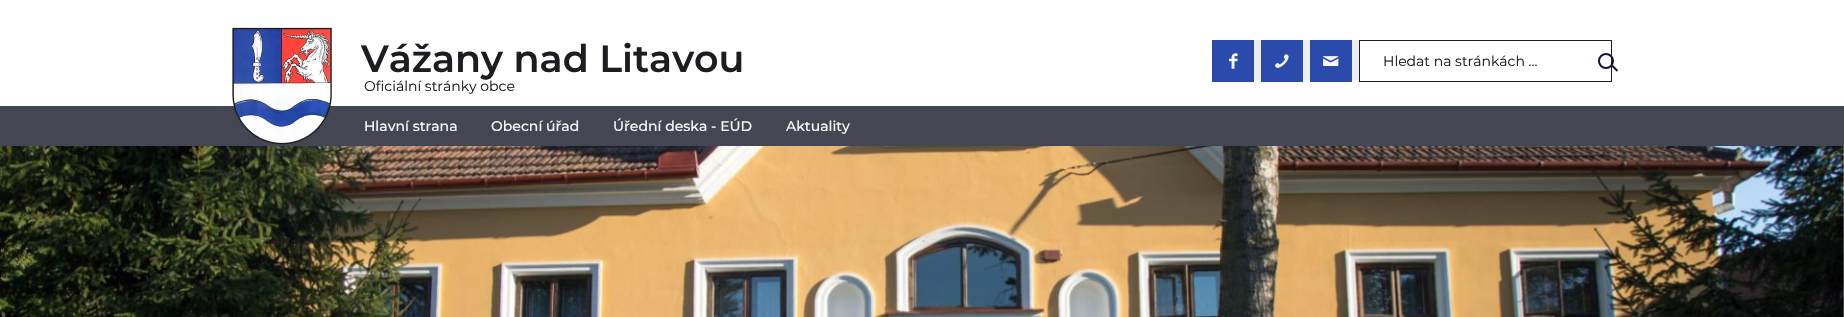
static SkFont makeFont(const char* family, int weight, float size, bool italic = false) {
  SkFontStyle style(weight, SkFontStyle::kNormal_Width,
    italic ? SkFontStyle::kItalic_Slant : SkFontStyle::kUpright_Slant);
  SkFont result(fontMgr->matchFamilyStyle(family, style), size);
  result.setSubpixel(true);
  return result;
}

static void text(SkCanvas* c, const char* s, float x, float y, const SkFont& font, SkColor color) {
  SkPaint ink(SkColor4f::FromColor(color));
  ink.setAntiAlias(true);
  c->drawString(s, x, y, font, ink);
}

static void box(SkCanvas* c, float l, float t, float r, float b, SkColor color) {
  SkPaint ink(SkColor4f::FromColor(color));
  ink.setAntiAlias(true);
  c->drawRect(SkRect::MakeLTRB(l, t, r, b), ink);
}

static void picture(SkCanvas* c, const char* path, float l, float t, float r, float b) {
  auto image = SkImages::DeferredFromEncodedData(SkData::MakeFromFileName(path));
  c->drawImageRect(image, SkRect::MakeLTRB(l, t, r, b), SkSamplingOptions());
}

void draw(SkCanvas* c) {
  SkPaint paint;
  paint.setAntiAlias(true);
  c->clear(0xffffffff);
  box(c, 0, 106, 1844, 146, 0xff444753);
  picture(c, "img_01.png", 232, 27, 332, 145);
  SkFont face1 = makeFont("Montserrat", 600, 38);
  text(c, "Vážany nad Litavou", 361, 72, face1, 0xff1c1d20);
  SkFont face2 = makeFont("Montserrat", 400, 14);
  text(c, "Oficiální stránky obce", 364, 91, face2, 0xff1c1d20);
  box(c, 1212, 40, 1254, 82, 0xff2a4bab);
  picture(c, "img_02.png", 1229, 53, 1238, 69);
  box(c, 1254, 40, 1359, 80, 0xffededed);
  box(c, 1261, 40, 1303, 82, 0xff2a4bab);
  picture(c, "img_03.png", 1275, 54, 1289, 68);
  box(c, 1310, 40, 1352, 82, 0xff2a4bab);
  picture(c, "img_04.png", 1323, 56, 1339, 66);
  paint.setStyle(SkPaint::kStroke_Style);
  paint.setStrokeWidth(1);
  paint.setColor(0xff1c1d20);
  c->drawRect(SkRect::MakeLTRB(1359.5f, 40.5f, 1611.5f, 81.5f), paint);
  text(c, "Hledat na stránkách ...", 1383, 66, face2, 0xff1c1d20);
  paint.setStrokeWidth(2);
  paint.setColor(0xff110f48);
  c->drawCircle(1606, 61, 7, paint);
  c->drawPath(SkPathBuilder().moveTo(1612, 65.5f).lineTo(1617.5f, 71).detach(), paint);
  SkFont face3 = makeFont("Montserrat", 500, 14);
  text(c, "Hlavní strana", 364, 131, face3, 0xfff8f8fa);
  text(c, "Obecní úřad", 491, 131, face3, 0xfff8f8fa);
  text(c, "Úřední deska - EÚD", 613, 131, face3, 0xfff8f8fa);
  text(c, "Aktuality", 786, 131, face3, 0xfff8f8fa);
  picture(c, "img_05.png", 0, 146, 1844, 317);
}
